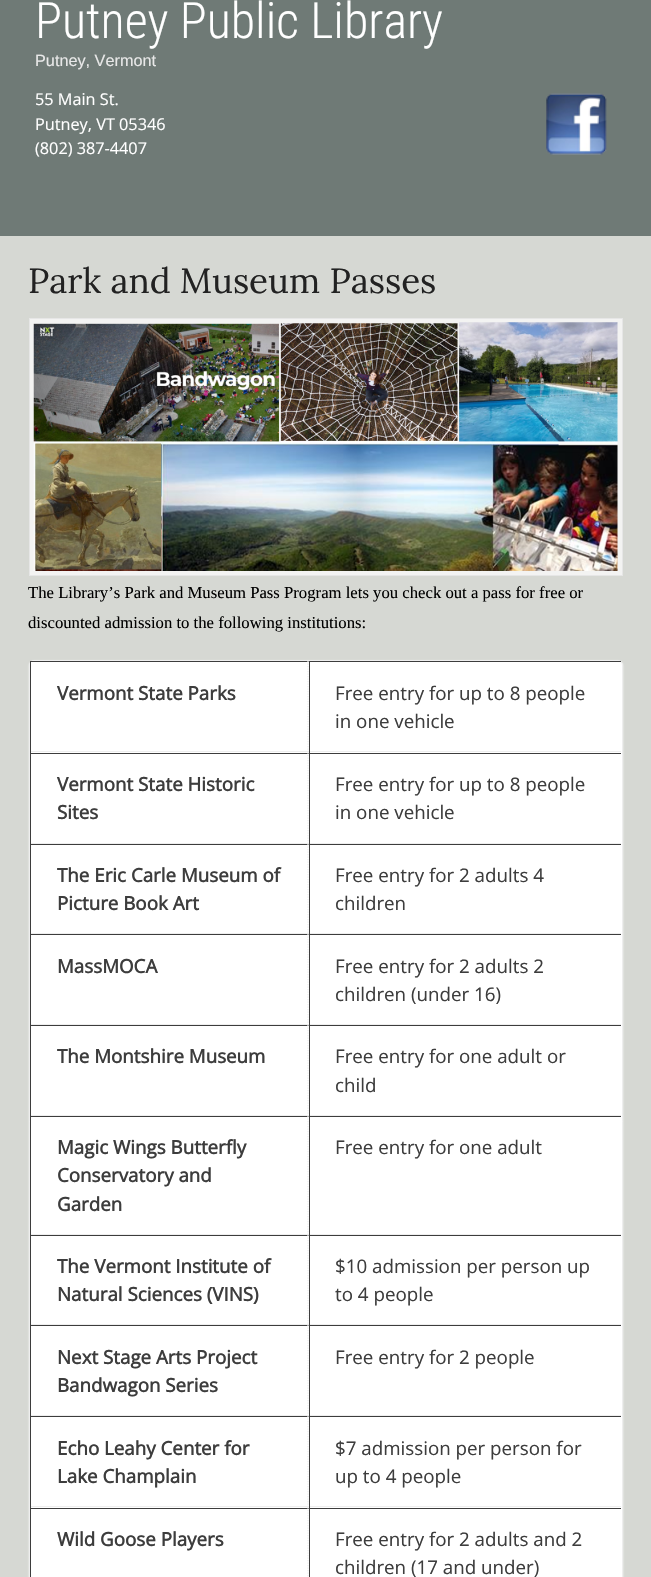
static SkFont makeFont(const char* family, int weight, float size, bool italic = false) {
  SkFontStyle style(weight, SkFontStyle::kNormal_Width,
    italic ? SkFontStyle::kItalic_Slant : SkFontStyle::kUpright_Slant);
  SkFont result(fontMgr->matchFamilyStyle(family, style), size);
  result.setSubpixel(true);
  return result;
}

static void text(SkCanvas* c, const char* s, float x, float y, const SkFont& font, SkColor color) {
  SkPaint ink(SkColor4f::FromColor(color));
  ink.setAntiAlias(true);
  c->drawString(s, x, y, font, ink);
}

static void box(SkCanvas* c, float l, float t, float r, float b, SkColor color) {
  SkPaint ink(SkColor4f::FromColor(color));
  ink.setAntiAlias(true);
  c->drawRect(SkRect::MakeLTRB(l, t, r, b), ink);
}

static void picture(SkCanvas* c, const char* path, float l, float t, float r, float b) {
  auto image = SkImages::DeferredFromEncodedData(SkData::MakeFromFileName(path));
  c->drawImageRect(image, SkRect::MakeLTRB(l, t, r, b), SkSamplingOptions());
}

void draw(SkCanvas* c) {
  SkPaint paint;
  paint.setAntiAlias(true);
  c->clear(0xffd6d8d3);
  box(c, 0, 0, 651, 236, 0xff6f7a76);
  SkFont face1 = makeFont("Roboto Condensed", 300, 50);
  text(c, "Putney Public Library", 35, 38, face1, 0xffffffff);
  SkFont face2 = makeFont("Liberation Sans", 400, 16.25f);
  text(c, "Putney, Vermont", 35, 66, face2, 0xffe8e8e8);
  SkFont face3 = makeFont("Open Sans", 400, 16.25f);
  text(c, "55 Main St.", 35, 105, face3, 0xffffffff);
  picture(c, "img_01.png", 546, 93, 607, 155);
  text(c, "Putney, VT 05346", 35, 130, face3, 0xffffffff);
  text(c, "(802) 387-4407", 35, 154, face3, 0xffffffff);
  SkFont face4 = makeFont("Lora", 400, 35);
  text(c, "Park and Museum Passes", 28, 293, face4, 0xff222222);
  paint.setColor(0xfff3f3f2);
  c->drawRect(SkRect::MakeLTRB(29.5f, 318.5f, 622.5f, 575.5f), paint);
  paint.setStyle(SkPaint::kStroke_Style);
  paint.setStrokeWidth(1);
  paint.setColor(0xffe6e6e6);
  c->drawRect(SkRect::MakeLTRB(29.5f, 318.5f, 622.5f, 575.5f), paint);
  picture(c, "img_02.png", 33, 322, 618, 571);
  SkFont face5 = makeFont("Liberation Serif", 400, 16.7f);
  text(c, "The Library’s Park and Museum Pass Program lets you check out a pass for free or", 28, 598, face5, 0xff000000);
  text(c, "discounted admission to the following institutions:", 28, 628, face5, 0xff000000);
  paint.setStyle(SkPaint::kFill_Style);
  paint.setColor(0xffffffff);
  paint.setMaskFilter(SkMaskFilter::MakeBlur(kNormal_SkBlurStyle, 1));
  c->drawRoundRect(SkRect::MakeLTRB(29, 661, 623, 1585), 5, 5, paint);
  paint.setMaskFilter(nullptr);
  c->drawRoundRect(SkRect::MakeLTRB(29.5f, 660.5f, 622.5f, 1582.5f), 4.5f, 4.5f, paint);
  paint.setStyle(SkPaint::kStroke_Style);
  paint.setColor(0xffeeeeee);
  c->drawRoundRect(SkRect::MakeLTRB(29.5f, 660.5f, 622.5f, 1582.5f), 4.5f, 4.5f, paint);
  box(c, 30, 661, 621, 662, 0xff3d3d3d);
  paint.setStrokeWidth(1.2f);
  paint.setPathEffect(SkDashPathEffect::Make({{1.25f, 1.25f}}, 0));
  c->drawPath(SkPathBuilder().moveTo(308, 661).lineTo(308, 752.5f).detach(), paint);
  paint.setPathEffect(nullptr);
  box(c, 30, 751, 621, 752, 0xffeeeeee);
  box(c, 30, 661, 31, 753, 0xff3d3d3d);
  SkFont face6 = makeFont("Open Sans", 700, 18.75f);
  text(c, "Vermont State Parks", 57, 700, face6, 0xff3d3d3d);
  box(c, 309, 661, 310, 753, 0xff3d3d3d);
  SkFont face7 = makeFont("Open Sans", 400, 18.75f);
  text(c, "Free entry for up to 8 people", 335, 700, face7, 0xff3d3d3d);
  text(c, "in one vehicle", 335, 728, face7, 0xff3d3d3d);
  box(c, 30, 753, 621, 754, 0xff3d3d3d);
  paint.setPathEffect(SkDashPathEffect::Make({{1.25f, 1.25f}}, 0));
  c->drawPath(SkPathBuilder().moveTo(308, 752.5f).lineTo(308, 844).detach(), paint);
  paint.setPathEffect(nullptr);
  box(c, 30, 843, 621, 844, 0xffeeeeee);
  box(c, 30, 753, 31, 844, 0xff3d3d3d);
  text(c, "Vermont State Historic", 57, 791, face6, 0xff3d3d3d);
  text(c, "Sites", 57, 819, face6, 0xff3d3d3d);
  box(c, 309, 753, 310, 844, 0xff3d3d3d);
  text(c, "Free entry for up to 8 people", 335, 791, face7, 0xff3d3d3d);
  text(c, "in one vehicle", 335, 819, face7, 0xff3d3d3d);
  box(c, 30, 844, 621, 845, 0xff3d3d3d);
  paint.setPathEffect(SkDashPathEffect::Make({{1.25f, 1.25f}}, 0));
  c->drawPath(SkPathBuilder().moveTo(308, 844).lineTo(308, 934).detach(), paint);
  paint.setPathEffect(nullptr);
  box(c, 30, 933, 621, 934, 0xffeeeeee);
  box(c, 30, 844, 31, 934, 0xff3d3d3d);
  text(c, "The Eric Carle Museum of", 57, 882, face6, 0xff3d3d3d);
  text(c, "Picture Book Art", 57, 910, face6, 0xff3d3d3d);
  box(c, 309, 844, 310, 934, 0xff3d3d3d);
  text(c, "Free entry for 2 adults 4", 335, 882, face7, 0xff3d3d3d);
  text(c, "children", 335, 910, face7, 0xff3d3d3d);
  box(c, 30, 934, 621, 935, 0xff3d3d3d);
  paint.setPathEffect(SkDashPathEffect::Make({{1.25f, 1.25f}}, 0));
  c->drawPath(SkPathBuilder().moveTo(308, 934).lineTo(308, 1025).detach(), paint);
  paint.setPathEffect(nullptr);
  box(c, 30, 1024, 621, 1025, 0xffeeeeee);
  box(c, 30, 934, 31, 1025, 0xff3d3d3d);
  text(c, "MassMOCA", 57, 973, face6, 0xff3d3d3d);
  box(c, 309, 934, 310, 1025, 0xff3d3d3d);
  text(c, "Free entry for 2 adults 2", 335, 973, face7, 0xff3d3d3d);
  text(c, "children (under 16)", 335, 1001, face7, 0xff3d3d3d);
  box(c, 30, 1025, 621, 1026, 0xff3d3d3d);
  paint.setPathEffect(SkDashPathEffect::Make({{1.25f, 1.25f}}, 0));
  c->drawPath(SkPathBuilder().moveTo(308, 1025).lineTo(308, 1116).detach(), paint);
  paint.setPathEffect(nullptr);
  box(c, 30, 1115, 621, 1116, 0xffeeeeee);
  box(c, 30, 1025, 31, 1116, 0xff3d3d3d);
  text(c, "The Montshire Museum", 57, 1063, face6, 0xff3d3d3d);
  box(c, 309, 1025, 310, 1116, 0xff3d3d3d);
  text(c, "Free entry for one adult or", 335, 1063, face7, 0xff3d3d3d);
  text(c, "child", 335, 1092, face7, 0xff3d3d3d);
  box(c, 30, 1116, 621, 1117, 0xff3d3d3d);
  paint.setPathEffect(SkDashPathEffect::Make({{1.25f, 1.25f}}, 0));
  c->drawPath(SkPathBuilder().moveTo(308, 1116).lineTo(308, 1235).detach(), paint);
  paint.setPathEffect(nullptr);
  box(c, 30, 1234, 621, 1235, 0xffeeeeee);
  box(c, 30, 1116, 31, 1235, 0xff3d3d3d);
  text(c, "Magic Wings Butterfly", 57, 1154, face6, 0xff3d3d3d);
  text(c, "Conservatory and", 57, 1182, face6, 0xff3d3d3d);
  text(c, "Garden", 57, 1211, face6, 0xff3d3d3d);
  box(c, 309, 1116, 310, 1235, 0xff3d3d3d);
  text(c, "Free entry for one adult", 335, 1154, face7, 0xff3d3d3d);
  box(c, 30, 1235, 621, 1236, 0xff3d3d3d);
  paint.setPathEffect(SkDashPathEffect::Make({{1.25f, 1.25f}}, 0));
  c->drawPath(SkPathBuilder().moveTo(308, 1235).lineTo(308, 1325).detach(), paint);
  paint.setPathEffect(nullptr);
  box(c, 30, 1324, 621, 1325, 0xffeeeeee);
  box(c, 30, 1235, 31, 1325, 0xff3d3d3d);
  text(c, "The Vermont Institute of", 57, 1273, face6, 0xff3d3d3d);
  text(c, "Natural Sciences (VINS)", 57, 1301, face6, 0xff3d3d3d);
  box(c, 309, 1235, 310, 1325, 0xff3d3d3d);
  text(c, "$10 admission per person up", 335, 1273, face7, 0xff3d3d3d);
  text(c, "to 4 people", 335, 1301, face7, 0xff3d3d3d);
  box(c, 30, 1325, 621, 1326, 0xff3d3d3d);
  paint.setPathEffect(SkDashPathEffect::Make({{1.25f, 1.25f}}, 0));
  c->drawPath(SkPathBuilder().moveTo(308, 1325).lineTo(308, 1416).detach(), paint);
  paint.setPathEffect(nullptr);
  box(c, 30, 1415, 621, 1416, 0xffeeeeee);
  box(c, 30, 1325, 31, 1416, 0xff3d3d3d);
  text(c, "Next Stage Arts Project", 57, 1364, face6, 0xff3d3d3d);
  text(c, "Bandwagon Series", 57, 1392, face6, 0xff3d3d3d);
  box(c, 309, 1325, 310, 1416, 0xff3d3d3d);
  text(c, "Free entry for 2 people", 335, 1364, face7, 0xff3d3d3d);
  box(c, 30, 1416, 621, 1417, 0xff3d3d3d);
  paint.setPathEffect(SkDashPathEffect::Make({{1.25f, 1.25f}}, 0));
  c->drawPath(SkPathBuilder().moveTo(308, 1416).lineTo(308, 1507.5f).detach(), paint);
  paint.setPathEffect(nullptr);
  box(c, 30, 1506, 621, 1507, 0xffeeeeee);
  box(c, 30, 1416, 31, 1508, 0xff3d3d3d);
  text(c, "Echo Leahy Center for", 57, 1455, face6, 0xff3d3d3d);
  text(c, "Lake Champlain", 57, 1483, face6, 0xff3d3d3d);
  box(c, 309, 1416, 310, 1508, 0xff3d3d3d);
  text(c, "$7 admission per person for", 335, 1455, face7, 0xff3d3d3d);
  text(c, "up to 4 people", 335, 1483, face7, 0xff3d3d3d);
  box(c, 30, 1508, 621, 1509, 0xff3d3d3d);
  paint.setPathEffect(SkDashPathEffect::Make({{1.25f, 1.25f}}, 0));
  c->drawPath(SkPathBuilder().moveTo(308, 1507.5f).lineTo(308, 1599).detach(), paint);
  paint.setPathEffect(nullptr);
  box(c, 30, 1508, 31, 1577, 0xff3d3d3d);
  text(c, "Wild Goose Players", 57, 1546, face6, 0xff3d3d3d);
  box(c, 309, 1508, 310, 1577, 0xff3d3d3d);
  text(c, "Free entry for 2 adults and 2", 335, 1546, face7, 0xff3d3d3d);
  text(c, "children (17 and under)", 335, 1574, face7, 0xff3d3d3d);
}
